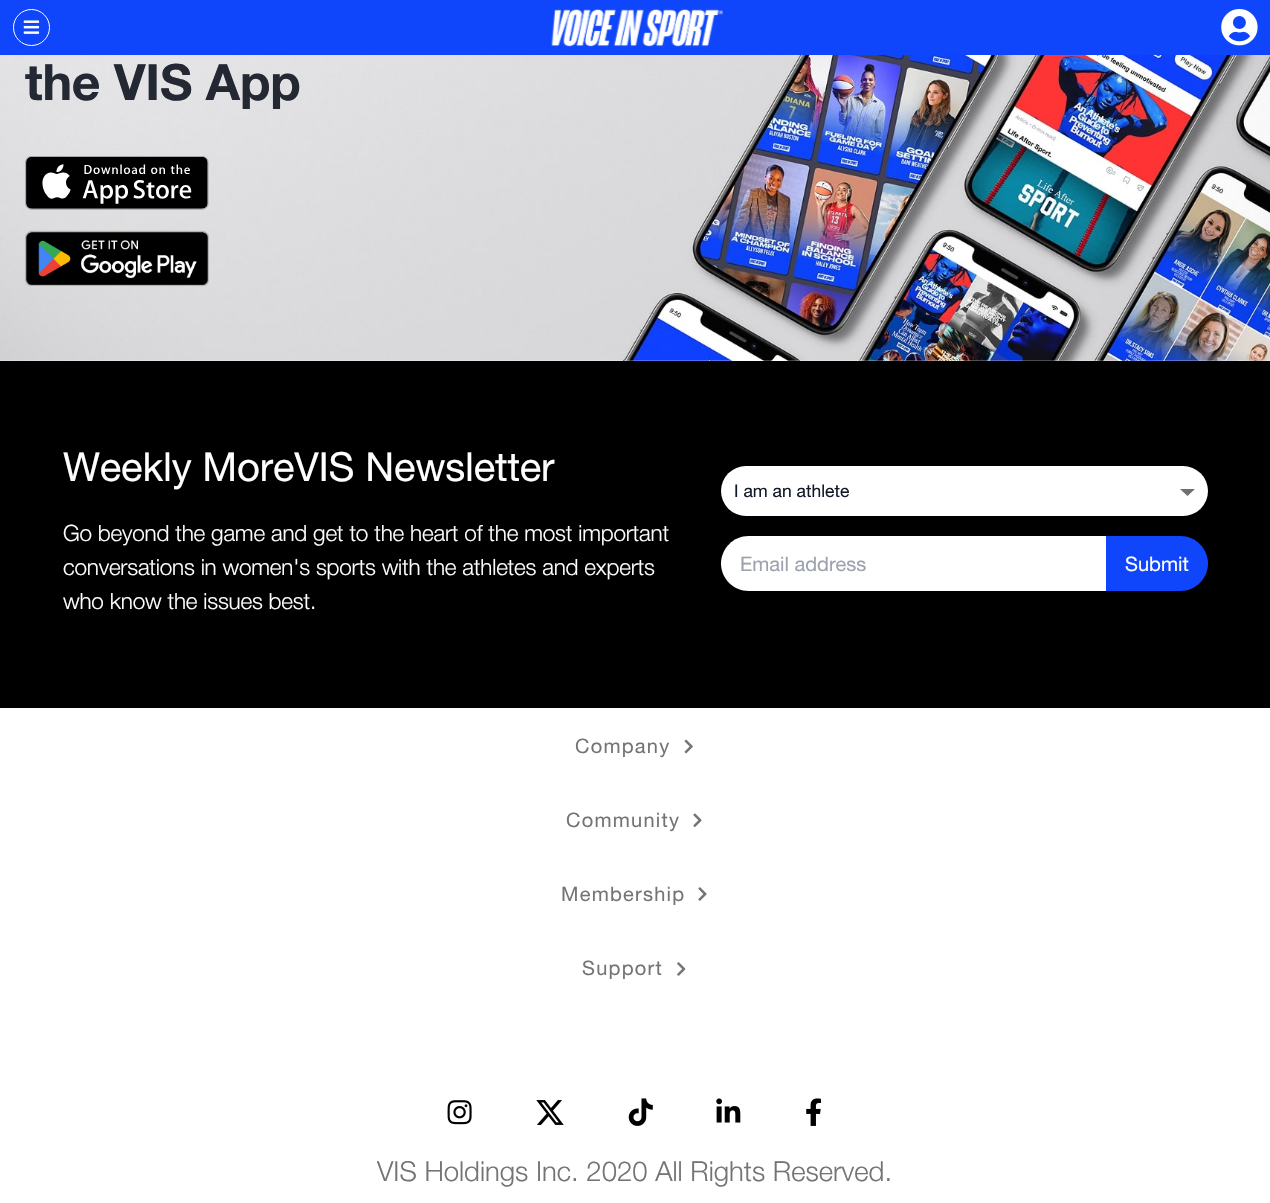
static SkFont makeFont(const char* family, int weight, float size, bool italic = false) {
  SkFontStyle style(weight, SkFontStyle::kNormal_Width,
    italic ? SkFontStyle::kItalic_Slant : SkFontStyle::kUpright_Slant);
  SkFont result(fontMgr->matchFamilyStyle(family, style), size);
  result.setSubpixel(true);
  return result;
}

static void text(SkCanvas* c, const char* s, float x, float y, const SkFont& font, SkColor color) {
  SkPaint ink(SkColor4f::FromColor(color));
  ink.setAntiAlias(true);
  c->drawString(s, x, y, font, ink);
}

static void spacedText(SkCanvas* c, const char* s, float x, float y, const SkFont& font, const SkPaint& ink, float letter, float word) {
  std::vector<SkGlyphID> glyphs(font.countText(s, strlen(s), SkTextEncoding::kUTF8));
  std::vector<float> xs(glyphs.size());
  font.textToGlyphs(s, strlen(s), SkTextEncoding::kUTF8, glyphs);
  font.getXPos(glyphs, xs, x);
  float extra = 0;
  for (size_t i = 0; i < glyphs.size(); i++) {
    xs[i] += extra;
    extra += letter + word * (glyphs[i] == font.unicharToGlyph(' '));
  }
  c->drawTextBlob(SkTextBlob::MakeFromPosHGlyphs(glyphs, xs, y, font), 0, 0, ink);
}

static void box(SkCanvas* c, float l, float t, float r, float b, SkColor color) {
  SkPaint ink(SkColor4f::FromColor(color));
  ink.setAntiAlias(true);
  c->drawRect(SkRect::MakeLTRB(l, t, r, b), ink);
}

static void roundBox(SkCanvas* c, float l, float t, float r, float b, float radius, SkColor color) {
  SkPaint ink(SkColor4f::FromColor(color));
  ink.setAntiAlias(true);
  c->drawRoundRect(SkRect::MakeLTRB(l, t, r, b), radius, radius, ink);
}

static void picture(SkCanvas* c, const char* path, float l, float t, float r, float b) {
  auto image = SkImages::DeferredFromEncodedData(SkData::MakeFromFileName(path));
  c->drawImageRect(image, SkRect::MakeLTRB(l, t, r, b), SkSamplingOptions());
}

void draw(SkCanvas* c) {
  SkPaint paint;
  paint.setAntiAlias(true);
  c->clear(0xffffffff);
  box(c, 0, 0, 1270, 55, 0xff0f46fb);
  paint.setStyle(SkPaint::kStroke_Style);
  paint.setStrokeWidth(1);
  paint.setColor(0xffffffff);
  c->drawCircle(31.5f, 27.5f, 18, paint);
  picture(c, "img_01.png", 23, 20, 40, 34);
  picture(c, "img_02.png", 551, 9, 724, 47);
  picture(c, "img_03.png", 1221, 9, 1258, 46);
  picture(c, "img_04.png", 0, 55, 1270, 361);
  SkFont face1 = makeFont("Helvetica Neue", 700, 50);
  paint.setStyle(SkPaint::kFill_Style);
  paint.setColor(0xff232832);
  spacedText(c, "the VIS App", 25, 100, face1, paint, -0.2f, 0);
  picture(c, "img_05.png", 25, 156, 209, 210);
  picture(c, "img_06.png", 25, 230, 209, 286);
  box(c, 0, 361, 1270, 708, 0xff000000);
  SkFont face2 = makeFont("Helvetica Neue", 400, 40);
  paint.setColor(0xffffffff);
  spacedText(c, "Weekly MoreVIS Newsletter", 63, 481, face2, paint, -0.2f, 0);
  SkFont face3 = makeFont("Helvetica Neue", 300, 22.5f);
  spacedText(c, "Go beyond the game and get to the heart of the most important", 63, 541, face3, paint, -0.2f, 0);
  spacedText(c, "conversations in women's sports with the athletes and experts", 63, 575, face3, paint, -0.2f, 0);
  spacedText(c, "who know the issues best.", 63, 609, face3, paint, -0.2f, 0);
  roundBox(c, 721, 466, 1208, 516, 25, 0xffffffff);
  paint.setColor(0xff707070);
  c->drawPath(SkPathBuilder().moveTo(1180, 489).lineTo(1195, 489).lineTo(1187.5f, 496).close().detach(), paint);
  SkFont face4 = makeFont("Helvetica Neue", 400, 17.5f);
  text(c, "I am an athlete", 734, 497, face4, 0xff111827);
  paint.setColor(0xffffffff);
  c->drawPath(SkPathBuilder().moveTo(748.5f, 536).lineTo(1106, 536).lineTo(1106, 591).lineTo(748.5f, 591).cubicTo(733.5f, 591, 721, 578.5f, 721, 563.5f).cubicTo(721, 548.5f, 733.5f, 536, 748.5f, 536).close().detach(), paint);
  SkFont face5 = makeFont("Helvetica Neue", 400, 20);
  text(c, "Email address", 740, 571, face5, 0xff9ca3af);
  paint.setColor(0xff0f46fb);
  c->drawPath(SkPathBuilder().moveTo(1106, 536).lineTo(1180.5f, 536).cubicTo(1195.5f, 536, 1208, 548.5f, 1208, 563.5f).cubicTo(1208, 578.5f, 1195.5f, 591, 1180.5f, 591).lineTo(1106, 591).close().detach(), paint);
  text(c, "Submit", 1125, 571, face5, 0xffffffff);
  paint.setColor(0xff747474);
  spacedText(c, "Company", 575, 753, face5, paint, 1.25f, 0);
  picture(c, "img_07.png", 684, 739, 693, 754);
  spacedText(c, "Community", 566, 827, face5, paint, 1.25f, 0);
  picture(c, "img_08.png", 693, 813, 702, 827);
  spacedText(c, "Membership", 561, 901, face5, paint, 1.25f, 0);
  picture(c, "img_09.png", 698, 887, 707, 901);
  spacedText(c, "Support", 582, 975, face5, paint, 1.25f, 0);
  picture(c, "img_10.png", 677, 962, 686, 976);
  picture(c, "img_11.png", 447, 1100, 472, 1125);
  picture(c, "img_12.png", 536, 1100, 564, 1125);
  picture(c, "img_13.png", 628, 1098, 653, 1126);
  picture(c, "img_14.png", 716, 1098, 741, 1123);
  picture(c, "img_15.png", 806, 1098, 821, 1126);
  SkFont face6 = makeFont("Helvetica Neue", 300, 27.5f);
  text(c, "VIS Holdings Inc. 2020 All Rights Reserved.", 377, 1181, face6, 0xff747474);
}
